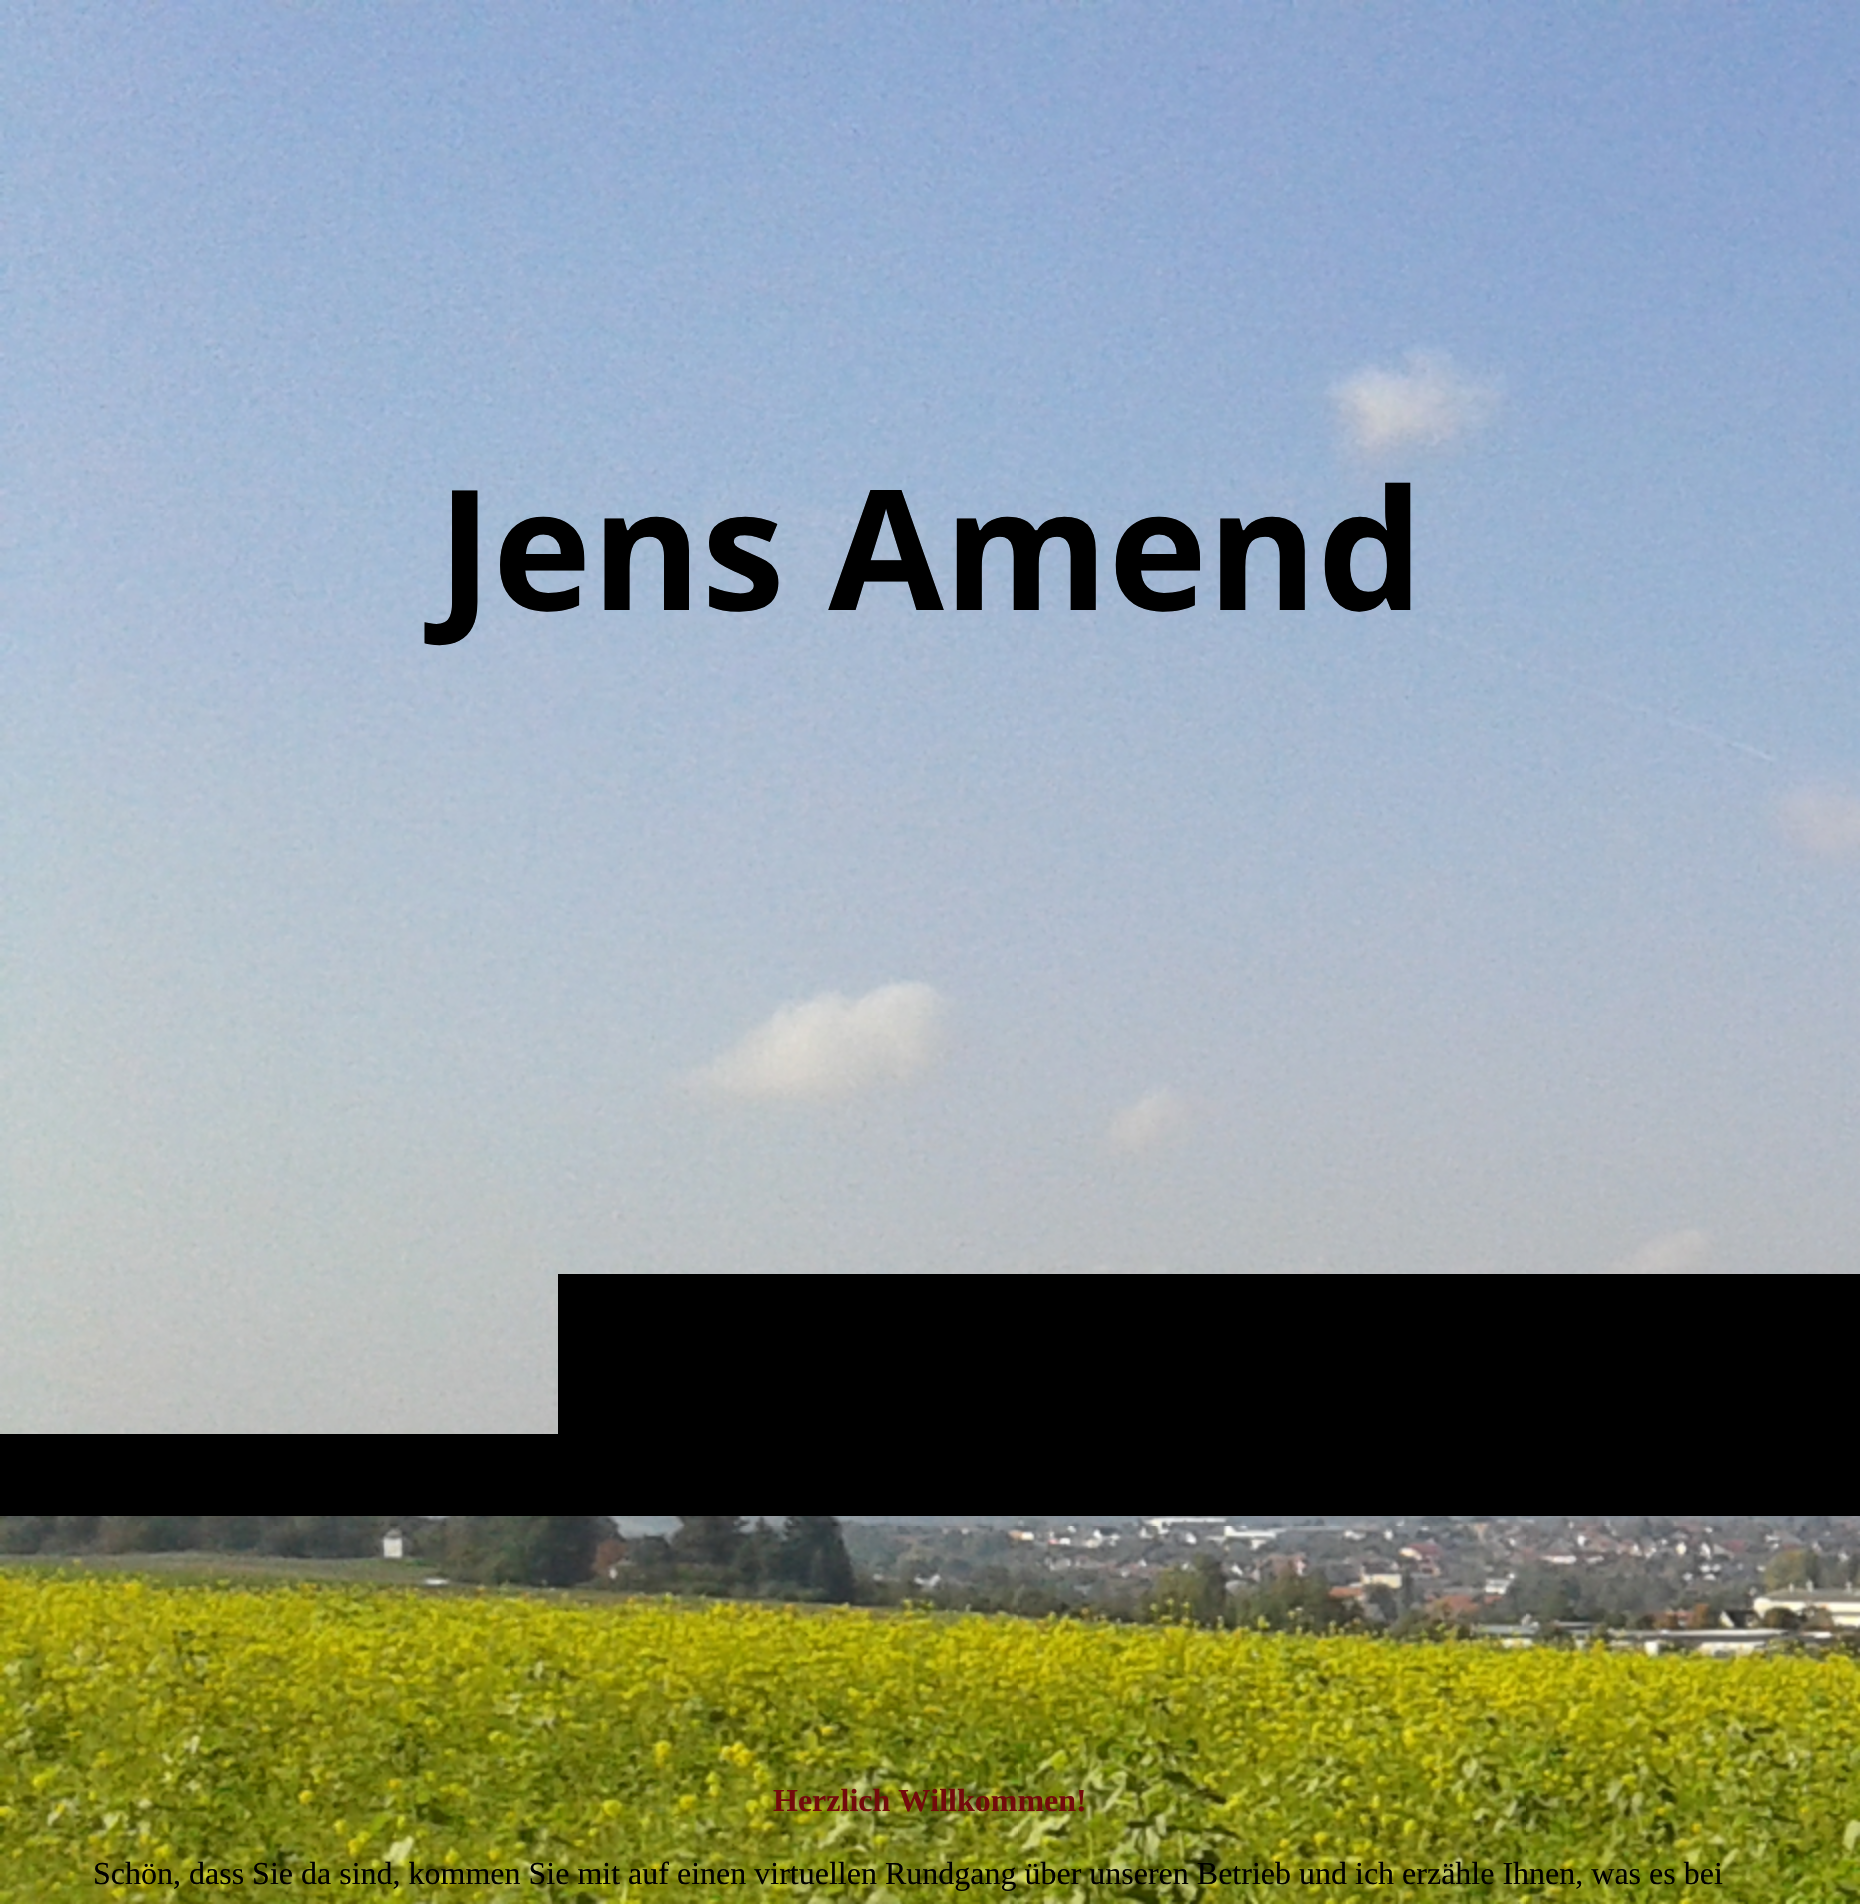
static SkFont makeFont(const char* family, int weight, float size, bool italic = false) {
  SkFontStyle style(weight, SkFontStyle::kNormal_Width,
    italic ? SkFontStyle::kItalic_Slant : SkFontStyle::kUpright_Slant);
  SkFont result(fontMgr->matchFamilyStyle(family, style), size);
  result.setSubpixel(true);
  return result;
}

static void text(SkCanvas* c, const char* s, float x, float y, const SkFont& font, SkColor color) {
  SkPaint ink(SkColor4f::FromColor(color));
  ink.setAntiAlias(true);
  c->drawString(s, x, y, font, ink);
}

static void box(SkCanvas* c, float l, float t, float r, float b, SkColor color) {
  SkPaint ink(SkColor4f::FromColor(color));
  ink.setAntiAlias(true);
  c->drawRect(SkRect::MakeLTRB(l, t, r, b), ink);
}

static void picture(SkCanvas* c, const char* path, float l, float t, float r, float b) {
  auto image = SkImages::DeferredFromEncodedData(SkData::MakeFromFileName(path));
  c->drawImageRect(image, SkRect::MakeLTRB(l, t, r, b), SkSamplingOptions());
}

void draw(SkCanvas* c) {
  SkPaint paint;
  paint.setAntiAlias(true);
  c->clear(0xffffffff);
  picture(c, "img_01.png", 0, 0, 1860, 1904);
  SkFont face1 = makeFont("Open Sans", 700, 167.5f);
  text(c, "Jens Amend", 437, 610, face1, 0xff000000);
  box(c, 0, 1434, 558, 1516, 0xff000000);
  box(c, 558, 1274, 1860, 1516, 0xff000000);
  SkFont face2 = makeFont("Liberation Serif", 700, 32);
  text(c, "Herzlich Willkommen!", 773, 1811, face2, 0xff730b0b);
  SkFont face3 = makeFont("Liberation Serif", 400, 32);
  text(c, "Schön, dass Sie da sind, kommen Sie mit auf einen virtuellen Rundgang über unseren Betrieb und ich erzähle Ihnen, was es bei", 93, 1884, face3, 0xff000000);
}
